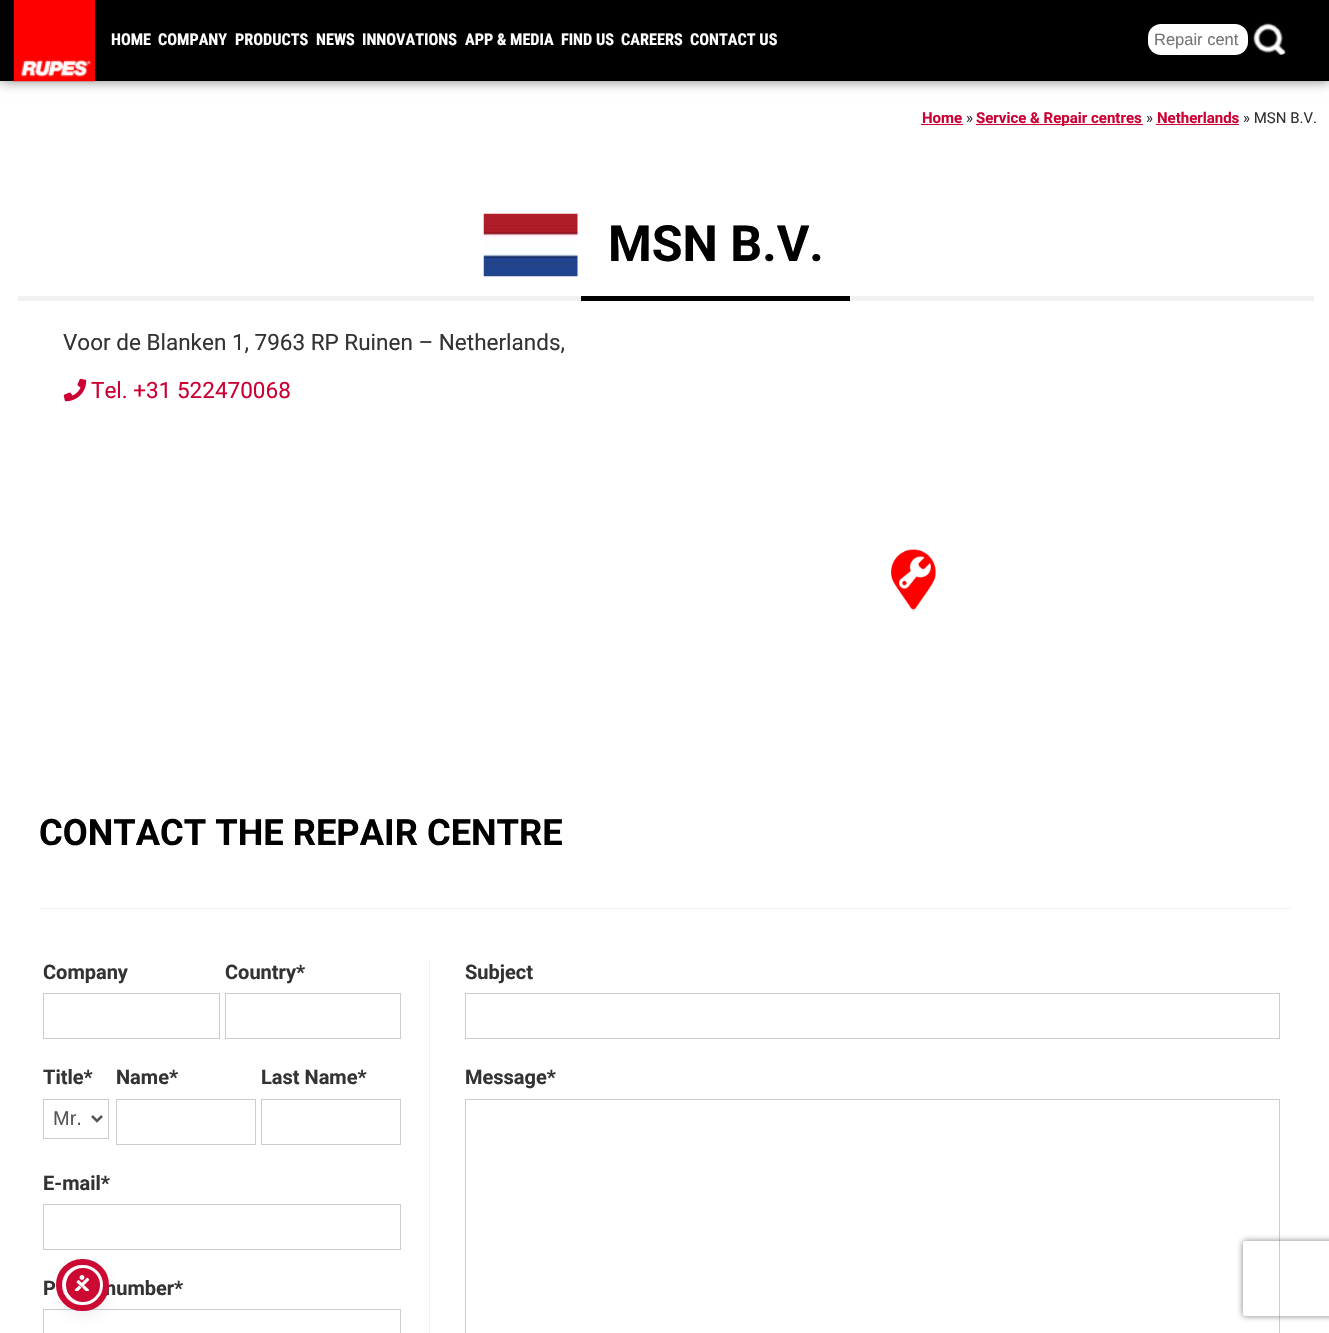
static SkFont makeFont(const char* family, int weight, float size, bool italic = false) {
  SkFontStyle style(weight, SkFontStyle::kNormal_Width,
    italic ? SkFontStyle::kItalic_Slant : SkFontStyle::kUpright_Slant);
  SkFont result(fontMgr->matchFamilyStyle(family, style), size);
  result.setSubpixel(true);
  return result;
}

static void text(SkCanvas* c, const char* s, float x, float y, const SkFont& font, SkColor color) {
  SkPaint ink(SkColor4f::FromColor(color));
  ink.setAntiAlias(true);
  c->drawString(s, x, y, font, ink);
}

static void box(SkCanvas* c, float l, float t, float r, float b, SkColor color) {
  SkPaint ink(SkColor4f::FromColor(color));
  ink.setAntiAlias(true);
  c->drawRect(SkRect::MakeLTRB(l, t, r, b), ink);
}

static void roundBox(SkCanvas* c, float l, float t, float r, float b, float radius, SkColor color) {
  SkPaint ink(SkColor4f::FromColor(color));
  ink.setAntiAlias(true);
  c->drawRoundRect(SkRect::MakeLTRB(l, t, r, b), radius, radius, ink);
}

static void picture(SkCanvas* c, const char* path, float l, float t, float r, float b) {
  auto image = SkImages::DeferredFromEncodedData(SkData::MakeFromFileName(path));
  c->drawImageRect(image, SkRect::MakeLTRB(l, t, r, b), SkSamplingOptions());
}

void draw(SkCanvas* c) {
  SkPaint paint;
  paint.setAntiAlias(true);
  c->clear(0xffffffff);
  paint.setColor(0x80000000);
  paint.setMaskFilter(SkMaskFilter::MakeBlur(kNormal_SkBlurStyle, 6));
  c->drawRect(SkRect::MakeLTRB(0, 0, 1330, 81), paint);
  paint.setMaskFilter(nullptr);
  box(c, 0, 0, 1329, 81, 0xff000000);
  picture(c, "img_01.png", 13, 0, 95, 82);
  SkFont face1 = makeFont("Roboto Condensed", 700, 16.25f);
  text(c, "HOME", 111, 45, face1, 0xffffffff);
  text(c, "COMPANY", 158, 45, face1, 0xffffffff);
  text(c, "PRODUCTS", 235, 45, face1, 0xffffffff);
  text(c, "NEWS", 316, 45, face1, 0xffffffff);
  text(c, "INNOVATIONS", 362, 45, face1, 0xffffffff);
  text(c, "APP & MEDIA", 465, 45, face1, 0xffffffff);
  text(c, "FIND US", 561, 45, face1, 0xffffffff);
  text(c, "CAREERS", 621, 45, face1, 0xffffffff);
  text(c, "CONTACT US", 690, 45, face1, 0xffffffff);
  roundBox(c, 1148, 24, 1248, 55, 13, 0xffffffff);
  SkFont face2 = makeFont("Liberation Sans", 400, 16.5f);
  text(c, "Repair cent", 1154, 45, face2, 0xff757575);
  picture(c, "img_02.png", 1253, 23, 1286, 55);
  SkFont face3 = makeFont("Roboto", 700, 15);
  text(c, "Home", 922, 123, face3, 0xffcc0033);
  box(c, 921, 124, 963, 125, 0xffcc0033);
  SkFont face4 = makeFont("Roboto", 400, 15);
  text(c, "»", 966, 123, face4, 0xff333333);
  box(c, 976, 124, 1143, 125, 0xffcc0033);
  text(c, "Service & Repair centres", 976, 123, face3, 0xffcc0033);
  text(c, "»", 1146, 123, face4, 0xff333333);
  box(c, 1156, 124, 1239, 125, 0xffcc0033);
  text(c, "Netherlands", 1157, 123, face3, 0xffcc0033);
  text(c, "» MSN B.V.", 1243, 123, face4, 0xff333333);
  box(c, 18, 296, 1314, 301, 0xfff1f1f1);
  picture(c, "img_03.png", 483, 213, 578, 277);
  box(c, 581, 296, 850, 301, 0xff000000);
  SkFont face5 = makeFont("Roboto", 700, 50);
  text(c, "MSN B.V.", 608, 261, face5, 0xff000000);
  SkFont face6 = makeFont("Roboto", 400, 22.5f);
  text(c, "Voor de Blanken 1, 7963 RP Ruinen – Netherlands,", 63, 350, face6, 0xff333333);
  picture(c, "img_04.png", 63, 378, 87, 402);
  text(c, "Tel. +31 522470068", 91, 398, face6, 0xffcc0033);
  picture(c, "img_06.png", 912, 609, 915, 612);
  picture(c, "img_05.png", 891, 549, 936, 610);
  box(c, 39, 908, 1291, 909, 0xfff1f1f1);
  SkFont face7 = makeFont("Roboto", 700, 36.25f);
  text(c, "CONTACT THE REPAIR CENTRE", 39, 845, face7, 0xff000000);
  box(c, 429, 959, 430, 1333, 0xfff1f1f1);
  SkFont face8 = makeFont("Roboto", 700, 20);
  text(c, "Company", 43, 979, face8, 0xff333333);
  paint.setStyle(SkPaint::kStroke_Style);
  paint.setStrokeWidth(1);
  paint.setColor(0xffcccccc);
  c->drawRect(SkRect::MakeLTRB(43.5f, 993.5f, 219.5f, 1038.5f), paint);
  text(c, "Country*", 225, 979, face8, 0xff333333);
  c->drawRect(SkRect::MakeLTRB(225.5f, 993.5f, 400.5f, 1038.5f), paint);
  text(c, "Title*", 43, 1084, face8, 0xff333333);
  c->drawRect(SkRect::MakeLTRB(43.5f, 1099.5f, 108.5f, 1138.5f), paint);
  paint.setStrokeWidth(2.5f);
  paint.setColor(0xff555555);
  c->drawPath(SkPathBuilder().moveTo(92, 1116).lineTo(97, 1121).lineTo(102, 1116).detach(), paint);
  SkFont face9 = makeFont("Liberation Sans", 400, 20);
  text(c, "Mr.", 53, 1125, face9, 0xff555555);
  text(c, "Name*", 116, 1084, face8, 0xff333333);
  paint.setStrokeWidth(1);
  paint.setColor(0xffcccccc);
  c->drawRect(SkRect::MakeLTRB(116.5f, 1099.5f, 255.5f, 1144.5f), paint);
  text(c, "Last Name*", 261, 1084, face8, 0xff333333);
  c->drawRect(SkRect::MakeLTRB(261.5f, 1099.5f, 400.5f, 1144.5f), paint);
  text(c, "E-mail*", 43, 1190, face8, 0xff333333);
  c->drawRect(SkRect::MakeLTRB(43.5f, 1204.5f, 400.5f, 1249.5f), paint);
  text(c, "P", 43, 1295, face8, 0xff333333);
  text(c, "number*", 105, 1295, face8, 0xff333333);
  c->drawRect(SkRect::MakeLTRB(43.5f, 1309.5f, 400.5f, 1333.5f), paint);
  text(c, "Subject", 465, 979, face8, 0xff333333);
  c->drawRect(SkRect::MakeLTRB(465.5f, 993.5f, 1279.5f, 1038.5f), paint);
  text(c, "Message*", 465, 1084, face8, 0xff333333);
  c->drawRect(SkRect::MakeLTRB(465.5f, 1099.5f, 1279.5f, 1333.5f), paint);
  paint.setStyle(SkPaint::kFill_Style);
  paint.setColor(0x335d6494);
  paint.setMaskFilter(SkMaskFilter::MakeBlur(kNormal_SkBlurStyle, 2.5f));
  c->drawRoundRect(SkRect::MakeLTRB(63, 1268, 103, 1308), 20, 20, paint);
  paint.setMaskFilter(nullptr);
  paint.setColor(0x26252c61);
  paint.setMaskFilter(SkMaskFilter::MakeBlur(kNormal_SkBlurStyle, 9.5f));
  c->drawRoundRect(SkRect::MakeLTRB(63, 1271, 103, 1311), 20, 20, paint);
  paint.setMaskFilter(nullptr);
  paint.setColor(0xffcc0933);
  c->drawCircle(83, 1285, 18.5f, paint);
  paint.setStyle(SkPaint::kStroke_Style);
  paint.setStrokeWidth(3);
  paint.setColor(0xffffffff);
  c->drawCircle(83, 1285, 18.5f, paint);
  paint.setStrokeWidth(6);
  paint.setColor(0xffcc0933);
  c->drawRoundRect(SkRect::MakeLTRB(59, 1262, 106, 1308), 23, 23, paint);
  picture(c, "img_07.png", 74, 1275, 90, 1291);
  c->save();
  c->clipPath(SkPathBuilder(SkPathFillType::kEvenOdd).moveTo(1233, 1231).lineTo(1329, 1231).lineTo(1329, 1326).lineTo(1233, 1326).close().moveTo(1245.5f, 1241).lineTo(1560.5f, 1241).cubicTo(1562, 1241, 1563, 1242, 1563, 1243.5f).lineTo(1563, 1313.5f).cubicTo(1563, 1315, 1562, 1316, 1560.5f, 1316).lineTo(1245.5f, 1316).cubicTo(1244, 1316, 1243, 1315, 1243, 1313.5f).lineTo(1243, 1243.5f).cubicTo(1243, 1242, 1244, 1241, 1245.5f, 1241).close().detach(), true);
  paint.setStyle(SkPaint::kFill_Style);
  paint.setColor(0xff808080);
  paint.setMaskFilter(SkMaskFilter::MakeBlur(kNormal_SkBlurStyle, 3));
  c->drawRoundRect(SkRect::MakeLTRB(1243, 1241, 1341, 1316), 2.5f, 2.5f, paint);
  paint.setMaskFilter(nullptr);
  c->restore();
}
